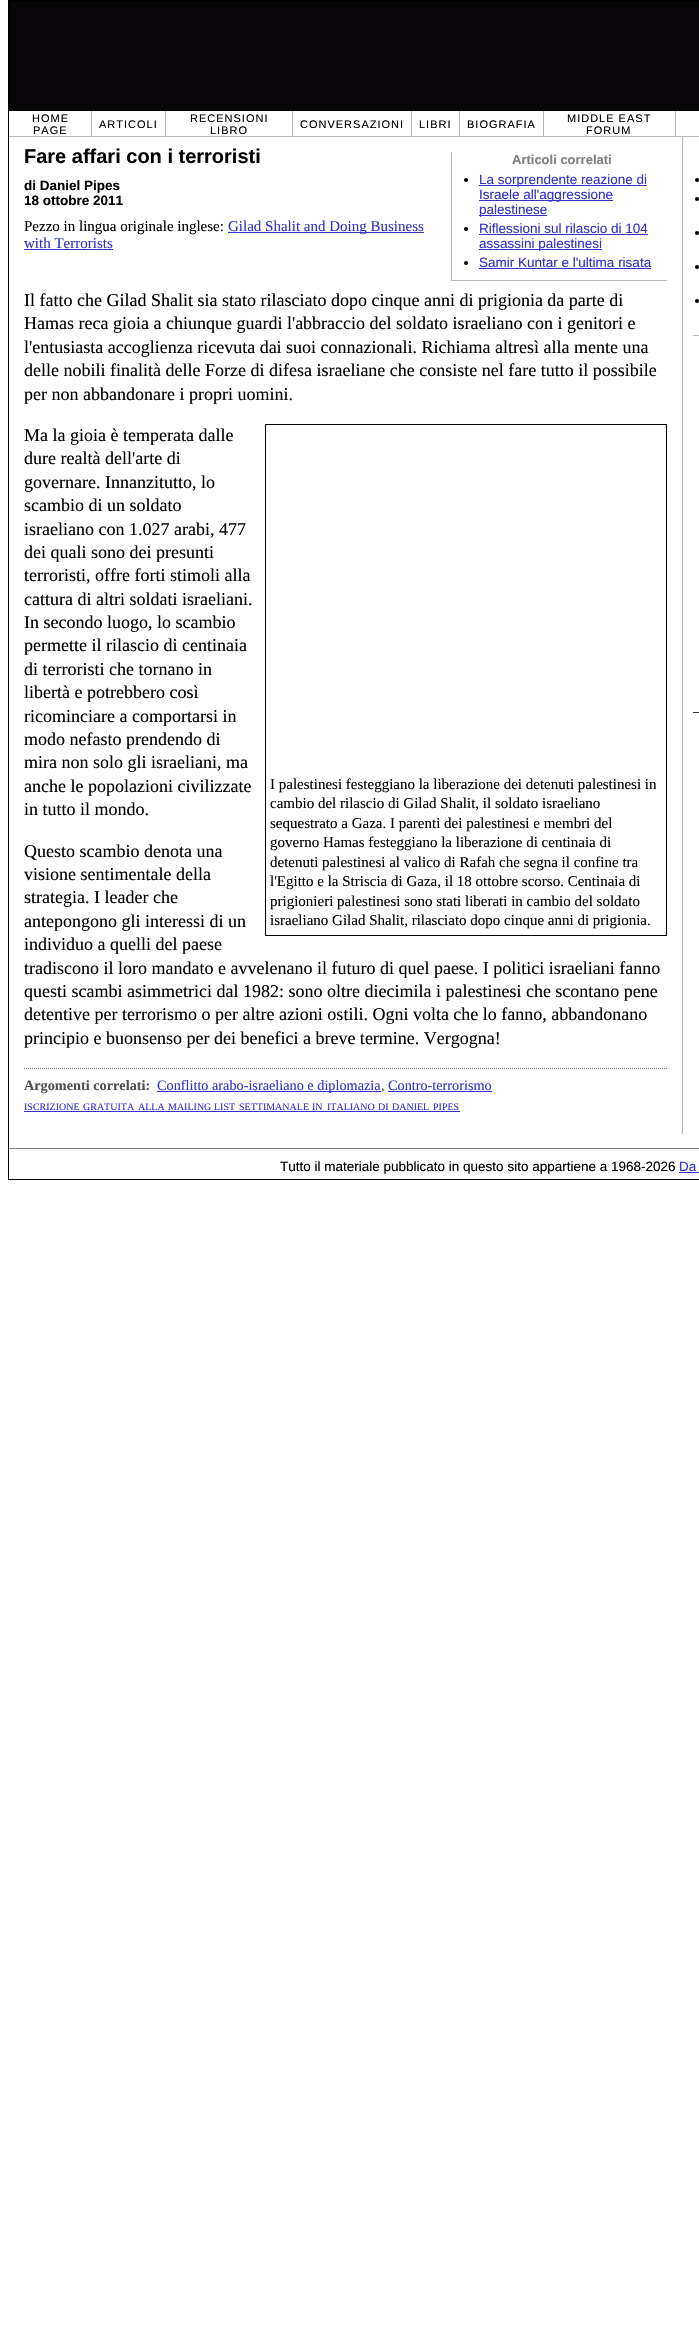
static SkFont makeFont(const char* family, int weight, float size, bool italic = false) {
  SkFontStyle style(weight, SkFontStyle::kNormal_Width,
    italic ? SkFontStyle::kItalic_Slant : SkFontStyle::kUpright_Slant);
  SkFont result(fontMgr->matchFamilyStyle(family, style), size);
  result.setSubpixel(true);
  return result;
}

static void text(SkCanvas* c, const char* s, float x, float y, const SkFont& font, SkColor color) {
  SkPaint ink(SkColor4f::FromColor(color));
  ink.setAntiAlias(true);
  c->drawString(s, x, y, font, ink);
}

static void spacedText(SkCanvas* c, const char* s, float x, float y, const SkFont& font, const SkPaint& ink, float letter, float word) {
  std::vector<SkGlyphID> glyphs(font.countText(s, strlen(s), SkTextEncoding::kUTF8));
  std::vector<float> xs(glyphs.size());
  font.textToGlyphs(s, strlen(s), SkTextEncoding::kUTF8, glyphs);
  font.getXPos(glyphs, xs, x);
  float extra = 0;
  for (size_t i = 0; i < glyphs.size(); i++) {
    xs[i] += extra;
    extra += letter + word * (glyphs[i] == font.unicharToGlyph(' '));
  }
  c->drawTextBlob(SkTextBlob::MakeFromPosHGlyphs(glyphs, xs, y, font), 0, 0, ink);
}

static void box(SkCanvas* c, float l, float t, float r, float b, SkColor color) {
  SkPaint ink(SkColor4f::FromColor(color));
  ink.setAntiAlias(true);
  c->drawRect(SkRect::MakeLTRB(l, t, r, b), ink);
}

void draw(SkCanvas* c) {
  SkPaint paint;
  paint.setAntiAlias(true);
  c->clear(0xffffffff);
  paint.setStyle(SkPaint::kStroke_Style);
  paint.setStrokeWidth(1);
  paint.setColor(0xff000000);
  c->drawRect(SkRect::MakeLTRB(8.5f, 0.5f, 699.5f, 1179.5f), paint);
  c->drawRect(SkRect::MakeLTRB(9.5f, 1.5f, 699.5f, 110.5f), paint);
  box(c, 10, 2, 699, 110, 0xff090609);
  box(c, 91, 111, 92, 137, 0xffb7b7b7);
  box(c, 9, 136, 92, 137, 0xffb7b7b7);
  SkFont face1 = makeFont("Liberation Sans", 400, 11);
  paint.setStyle(SkPaint::kFill_Style);
  spacedText(c, "HOME", 32, 122, face1, paint, 1, 0);
  spacedText(c, "PAGE", 33, 134, face1, paint, 1, 0);
  box(c, 165, 111, 166, 137, 0xffb7b7b7);
  box(c, 92, 136, 166, 137, 0xffb7b7b7);
  spacedText(c, "ARTICOLI", 99, 128, face1, paint, 1, 0);
  box(c, 292, 111, 293, 137, 0xffb7b7b7);
  box(c, 166, 136, 293, 137, 0xffb7b7b7);
  spacedText(c, "RECENSIONI", 190, 122, face1, paint, 1, 0);
  spacedText(c, "LIBRO", 210, 134, face1, paint, 1, 0);
  box(c, 411, 111, 412, 137, 0xffb7b7b7);
  box(c, 293, 136, 412, 137, 0xffb7b7b7);
  spacedText(c, "CONVERSAZIONI", 300, 128, face1, paint, 1, 0);
  box(c, 459, 111, 460, 137, 0xffb7b7b7);
  box(c, 412, 136, 460, 137, 0xffb7b7b7);
  spacedText(c, "LIBRI", 419, 128, face1, paint, 1, 0);
  box(c, 543, 111, 544, 137, 0xffb7b7b7);
  box(c, 460, 136, 544, 137, 0xffb7b7b7);
  spacedText(c, "BIOGRAFIA", 467, 128, face1, paint, 1, 0);
  box(c, 675, 111, 676, 137, 0xffb7b7b7);
  box(c, 544, 136, 699, 137, 0xffb7b7b7);
  spacedText(c, "MIDDLE EAST", 567, 122, face1, paint, 1, 0);
  spacedText(c, "FORUM", 586, 134, face1, paint, 1, 0);
  SkFont face2 = makeFont("Liberation Sans", 700, 20);
  text(c, "Fare affari con i terroristi", 24, 163, face2, 0xff000000);
  SkFont face3 = makeFont("Liberation Sans", 700, 13.5f);
  text(c, "di Daniel Pipes", 24, 190, face3, 0xff000000);
  text(c, "18 ottobre 2011", 24, 205, face3, 0xff000000);
  SkFont face4 = makeFont("Liberation Serif", 400, 15);
  text(c, "Pezzo in lingua originale inglese:", 24, 231, face4, 0xff000000);
  box(c, 228, 232, 424, 233, 0xff3333cc);
  text(c, "Gilad Shalit and Doing Business", 228, 231, face4, 0xff3333cc);
  text(c, "with Terrorists", 24, 248, face4, 0xff3333cc);
  box(c, 24, 249, 113, 250, 0xff3333cc);
  box(c, 451, 280, 667, 281, 0xffb7b7b7);
  box(c, 451, 152, 452, 281, 0xffb7b7b7);
  SkFont face5 = makeFont("Liberation Sans", 700, 13);
  text(c, "Articoli correlati", 512, 164, face5, 0xff808080);
  c->drawCircle(466, 180, 2, paint);
  box(c, 479, 185, 647, 186, 0xff3333cc);
  SkFont face6 = makeFont("Liberation Sans", 400, 13.5f);
  text(c, "La sorprendente reazione di", 479, 184, face6, 0xff3333cc);
  box(c, 479, 200, 613, 201, 0xff3333cc);
  text(c, "Israele all'aggressione", 479, 199, face6, 0xff3333cc);
  box(c, 479, 215, 547, 216, 0xff3333cc);
  text(c, "palestinese", 479, 214, face6, 0xff3333cc);
  c->drawCircle(466, 229, 2, paint);
  text(c, "Riflessioni sul rilascio di 104", 479, 233, face6, 0xff3333cc);
  box(c, 479, 234, 648, 235, 0xff3333cc);
  box(c, 479, 249, 602, 250, 0xff3333cc);
  text(c, "assassini palestinesi", 479, 248, face6, 0xff3333cc);
  c->drawCircle(466, 263, 2, paint);
  text(c, "Samir Kuntar e l'ultima risata", 479, 267, face6, 0xff3333cc);
  box(c, 479, 268, 651, 269, 0xff3333cc);
  SkFont face7 = makeFont("Liberation Serif", 400, 18);
  text(c, "Il fatto che Gilad Shalit sia stato rilasciato dopo cinque anni di prigionia da parte di", 24, 306, face7, 0xff000000);
  text(c, "Hamas reca gioia a chiunque guardi l'abbraccio del soldato israeliano con i genitori e", 24, 329, face7, 0xff000000);
  text(c, "l'entusiasta accoglienza ricevuta dai suoi connazionali. Richiama altresì alla mente una", 24, 353, face7, 0xff000000);
  text(c, "delle nobili finalità delle Forze di difesa israeliane che consiste nel fare tutto il possibile", 24, 376, face7, 0xff000000);
  text(c, "per non abbandonare i propri uomini.", 24, 400, face7, 0xff000000);
  text(c, "Ma la gioia è temperata dalle", 24, 441, face7, 0xff000000);
  text(c, "dure realtà dell'arte di", 24, 464, face7, 0xff000000);
  text(c, "governare. Innanzitutto, lo", 24, 488, face7, 0xff000000);
  text(c, "scambio di un soldato", 24, 511, face7, 0xff000000);
  text(c, "israeliano con 1.027 arabi, 477", 24, 535, face7, 0xff000000);
  text(c, "dei quali sono dei presunti", 24, 558, face7, 0xff000000);
  text(c, "terroristi, offre forti stimoli alla", 24, 581, face7, 0xff000000);
  text(c, "cattura di altri soldati israeliani.", 24, 605, face7, 0xff000000);
  text(c, "In secondo luogo, lo scambio", 24, 628, face7, 0xff000000);
  text(c, "permette il rilascio di centinaia", 24, 651, face7, 0xff000000);
  text(c, "di terroristi che tornano in", 24, 675, face7, 0xff000000);
  text(c, "libertà e potrebbero così", 24, 698, face7, 0xff000000);
  text(c, "ricominciare a comportarsi in", 24, 722, face7, 0xff000000);
  text(c, "modo nefasto prendendo di", 24, 745, face7, 0xff000000);
  text(c, "mira non solo gli israeliani, ma", 24, 768, face7, 0xff000000);
  text(c, "anche le popolazioni civilizzate", 24, 792, face7, 0xff000000);
  paint.setStyle(SkPaint::kStroke_Style);
  c->drawRect(SkRect::MakeLTRB(265.5f, 424.5f, 666.5f, 935.5f), paint);
  text(c, "I palestinesi festeggiano la liberazione dei detenuti palestinesi in", 270, 789, face4, 0xff000000);
  text(c, "cambio del rilascio di Gilad Shalit, il soldato israeliano", 270, 808, face4, 0xff000000);
  text(c, "sequestrato a Gaza. I parenti dei palestinesi e membri del", 270, 828, face4, 0xff000000);
  text(c, "governo Hamas festeggiano la liberazione di centinaia di", 270, 847, face4, 0xff000000);
  text(c, "detenuti palestinesi al valico di Rafah che segna il confine tra", 270, 867, face4, 0xff000000);
  text(c, "l'Egitto e la Striscia di Gaza, il 18 ottobre scorso. Centinaia di", 270, 886, face4, 0xff000000);
  text(c, "prigionieri palestinesi sono stati liberati in cambio del soldato", 270, 906, face4, 0xff000000);
  text(c, "israeliano Gilad Shalit, rilasciato dopo cinque anni di prigionia.", 270, 925, face4, 0xff000000);
  text(c, "in tutto il mondo.", 24, 815, face7, 0xff000000);
  text(c, "Questo scambio denota una", 24, 857, face7, 0xff000000);
  text(c, "visione sentimentale della", 24, 880, face7, 0xff000000);
  text(c, "strategia. I leader che", 24, 903, face7, 0xff000000);
  text(c, "antepongono gli interessi di un", 24, 927, face7, 0xff000000);
  text(c, "individuo a quelli del paese", 24, 950, face7, 0xff000000);
  text(c, "tradiscono il loro mandato e avvelenano il futuro di quel paese. I politici israeliani fanno", 24, 974, face7, 0xff000000);
  text(c, "questi scambi asimmetrici dal 1982: sono oltre diecimila i palestinesi che scontano pene", 24, 997, face7, 0xff000000);
  text(c, "detentive per terrorismo o per altre azioni ostili. Ogni volta che lo fanno, abbandonano", 24, 1020, face7, 0xff000000);
  text(c, "principio e buonsenso per dei benefici a breve termine. Vergogna!", 24, 1044, face7, 0xff000000);
  paint.setColor(0xff808080);
  paint.setPathEffect(SkDashPathEffect::Make({{1, 1}}, 0));
  c->drawPath(SkPathBuilder().moveTo(24, 1068.5f).lineTo(667, 1068.5f).detach(), paint);
  paint.setPathEffect(nullptr);
  SkFont face8 = makeFont("Liberation Serif", 700, 14.25f);
  text(c, "Argomenti correlati:", 24, 1090, face8, 0xff525050);
  box(c, 157, 1091, 381, 1092, 0xff3333cc);
  SkFont face9 = makeFont("Liberation Serif", 400, 14.25f);
  text(c, "Conflitto arabo-israeliano e diplomazia", 157, 1090, face9, 0xff3333cc);
  text(c, ",", 381, 1090, face9, 0xff525050);
  text(c, "Contro-terrorismo", 388, 1090, face9, 0xff3333cc);
  box(c, 388, 1091, 492, 1092, 0xff3333cc);
  SkFont face10 = makeFont("Liberation Serif", 400, 10);
  text(c, "ISCRIZIONE", 24, 1110, face10, 0xff3333cc);
  box(c, 24, 1111, 460, 1112, 0xff3333cc);
  text(c, "GRATUITA", 83, 1110, face10, 0xff3333cc);
  text(c, "ALLA", 138, 1110, face10, 0xff3333cc);
  text(c, "MAILING", 168, 1110, face10, 0xff3333cc);
  text(c, "LIST", 214, 1110, face10, 0xff3333cc);
  text(c, "SETTIMANALE", 239, 1110, face10, 0xff3333cc);
  text(c, "IN", 312, 1110, face10, 0xff3333cc);
  text(c, "ITALIANO", 327, 1110, face10, 0xff3333cc);
  text(c, "DI", 378, 1110, face10, 0xff3333cc);
  text(c, "DANIEL", 392, 1110, face10, 0xff3333cc);
  text(c, "PIPES", 433, 1110, face10, 0xff3333cc);
  box(c, 682, 137, 683, 1134, 0xffb7b7b7);
  box(c, 693, 335, 699, 336, 0xffb7b7b7);
  paint.setStyle(SkPaint::kFill_Style);
  paint.setColor(0xff000000);
  c->drawCircle(697, 180, 2, paint);
  c->drawCircle(697, 199, 2, paint);
  c->drawCircle(697, 233, 2, paint);
  c->drawCircle(697, 267, 2, paint);
  c->drawCircle(697, 301, 2, paint);
  box(c, 693, 712, 699, 713, 0xff353535);
  box(c, 9, 1148, 699, 1149, 0xff808080);
  text(c, "Tutto il materiale pubblicato in questo sito appartiene a 1968-2026", 280, 1171, face6, 0xff000000);
  text(c, "Da", 679, 1171, face6, 0xff3333cc);
  box(c, 679, 1172, 699, 1173, 0xff3333cc);
}
